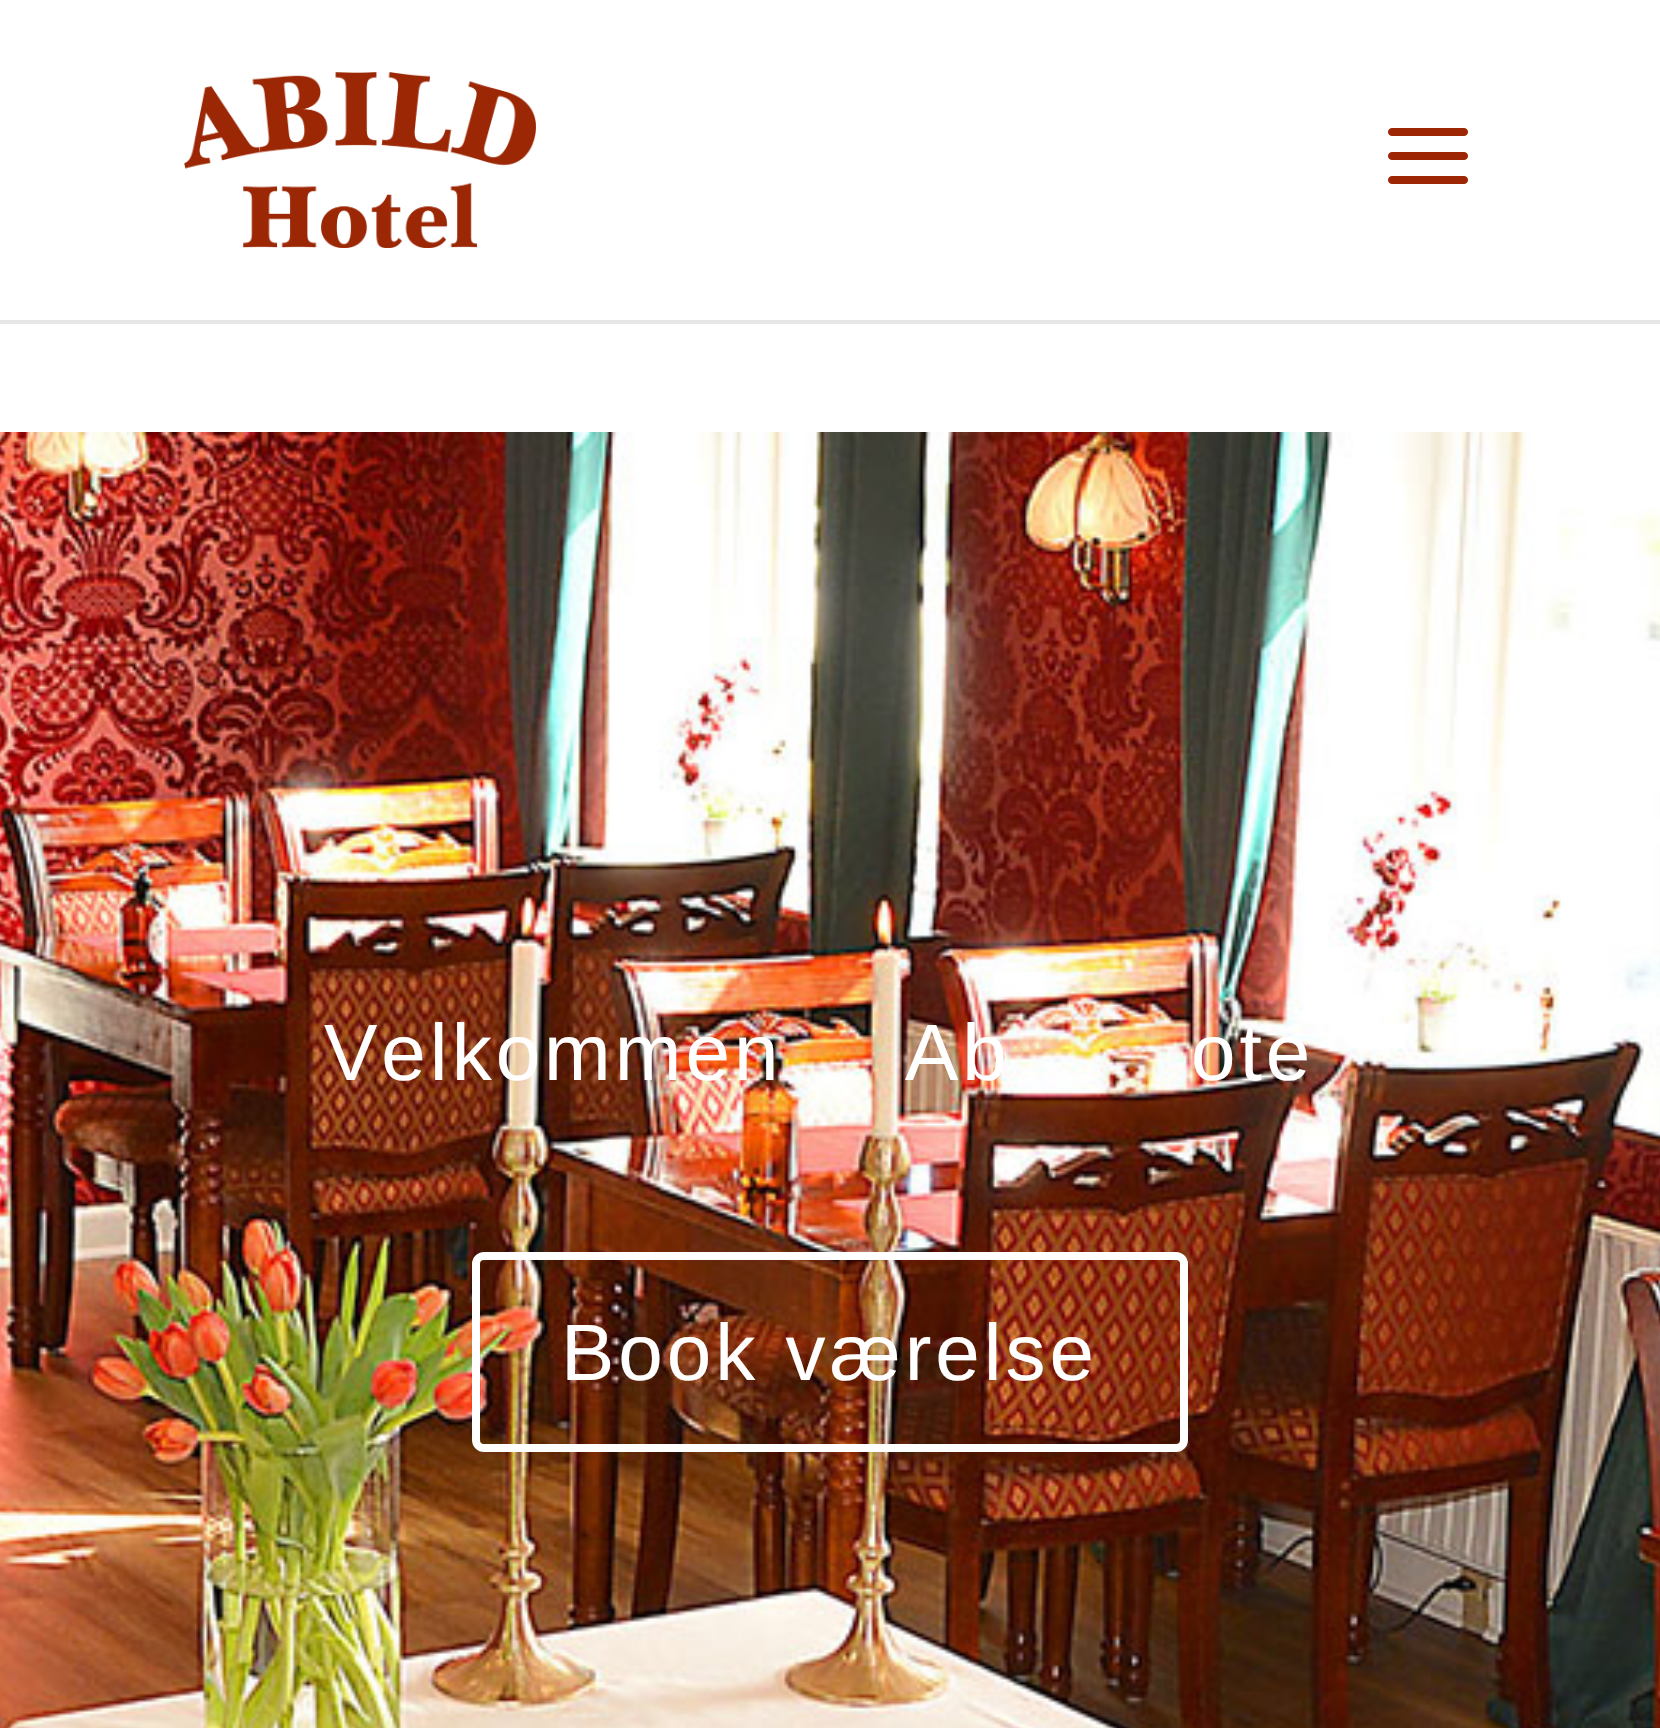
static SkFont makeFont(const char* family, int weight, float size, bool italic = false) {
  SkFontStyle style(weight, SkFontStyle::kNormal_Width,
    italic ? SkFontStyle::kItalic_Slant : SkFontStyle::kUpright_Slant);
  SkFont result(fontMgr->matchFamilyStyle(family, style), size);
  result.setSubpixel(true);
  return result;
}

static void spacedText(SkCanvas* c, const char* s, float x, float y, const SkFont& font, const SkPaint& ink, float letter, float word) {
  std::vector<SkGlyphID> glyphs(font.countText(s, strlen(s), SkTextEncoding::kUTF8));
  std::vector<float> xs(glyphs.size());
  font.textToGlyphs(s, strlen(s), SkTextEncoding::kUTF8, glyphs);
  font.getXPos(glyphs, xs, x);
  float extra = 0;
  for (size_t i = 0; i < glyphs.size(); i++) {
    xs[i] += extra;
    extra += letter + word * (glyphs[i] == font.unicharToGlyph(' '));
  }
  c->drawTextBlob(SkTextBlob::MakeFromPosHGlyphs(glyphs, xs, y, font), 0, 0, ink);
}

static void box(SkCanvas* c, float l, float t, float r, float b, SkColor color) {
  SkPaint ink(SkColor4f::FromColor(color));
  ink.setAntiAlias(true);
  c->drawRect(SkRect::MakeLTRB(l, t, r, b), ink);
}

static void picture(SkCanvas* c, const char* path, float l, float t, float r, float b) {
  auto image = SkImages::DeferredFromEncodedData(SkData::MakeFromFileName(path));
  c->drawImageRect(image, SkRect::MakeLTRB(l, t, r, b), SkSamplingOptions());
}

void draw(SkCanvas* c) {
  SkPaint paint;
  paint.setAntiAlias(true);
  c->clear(0xffffffff);
  box(c, 0, 320, 1660, 324, 0xffe6e6e6);
  picture(c, "img_01.png", 184, 72, 536, 248);
  picture(c, "img_02.png", 1388, 128, 1468, 184);
  picture(c, "img_03.png", 0, 432, 1660, 1728);
  SkFont face1 = makeFont("Liberation Sans", 400, 80);
  paint.setColor(0xffffffff);
  spacedText(c, "Velkommen", 324, 1080, face1, paint, 4, 0);
  spacedText(c, "Ab", 905, 1080, face1, paint, 4, 0);
  spacedText(c, "ote", 1191, 1080, face1, paint, 4, 0);
  paint.setStyle(SkPaint::kStroke_Style);
  paint.setStrokeWidth(8);
  c->drawRoundRect(SkRect::MakeLTRB(476, 1256, 1184, 1448), 8, 8, paint);
  paint.setStyle(SkPaint::kFill_Style);
  spacedText(c, "Book værelse", 561, 1380, face1, paint, 4, 0);
}
